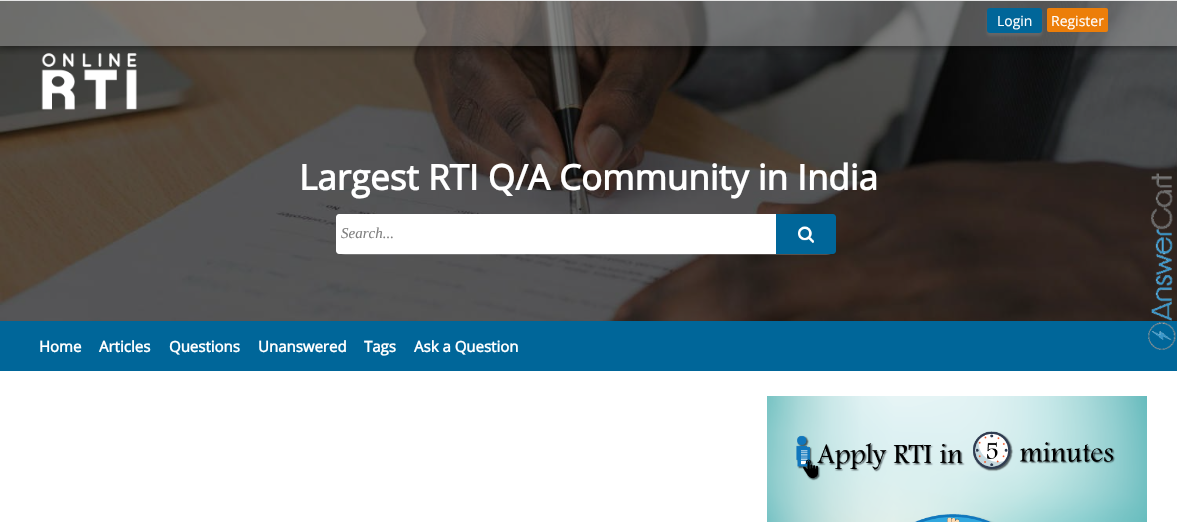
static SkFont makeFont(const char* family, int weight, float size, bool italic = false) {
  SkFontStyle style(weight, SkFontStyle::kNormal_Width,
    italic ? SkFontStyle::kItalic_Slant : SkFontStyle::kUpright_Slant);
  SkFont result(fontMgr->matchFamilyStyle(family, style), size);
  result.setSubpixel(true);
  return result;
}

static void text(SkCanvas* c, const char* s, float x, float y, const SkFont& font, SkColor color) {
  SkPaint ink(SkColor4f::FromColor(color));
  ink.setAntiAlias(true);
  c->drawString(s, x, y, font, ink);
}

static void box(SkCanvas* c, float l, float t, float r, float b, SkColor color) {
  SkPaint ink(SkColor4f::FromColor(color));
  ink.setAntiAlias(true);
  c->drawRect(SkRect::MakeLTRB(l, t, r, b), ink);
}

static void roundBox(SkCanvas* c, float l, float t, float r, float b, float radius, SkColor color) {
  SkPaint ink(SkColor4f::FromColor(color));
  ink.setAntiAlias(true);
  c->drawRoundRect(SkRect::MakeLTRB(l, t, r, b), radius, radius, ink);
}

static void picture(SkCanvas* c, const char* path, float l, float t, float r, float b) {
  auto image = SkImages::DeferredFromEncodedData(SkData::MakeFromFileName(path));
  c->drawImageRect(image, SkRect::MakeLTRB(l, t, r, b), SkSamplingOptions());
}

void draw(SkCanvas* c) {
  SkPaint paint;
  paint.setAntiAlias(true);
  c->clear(0xffffffff);
  picture(c, "img_01.png", 0, 1, 1177, 321);
  picture(c, "img_02.png", 41, 53, 137, 110);
  c->save();
  c->clipRect(SkRect::MakeLTRB(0, 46, 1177, 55));
  paint.setColor(0x85000000);
  paint.setMaskFilter(SkMaskFilter::MakeBlur(kNormal_SkBlurStyle, 4.5f));
  c->drawRect(SkRect::MakeLTRB(-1, -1, 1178, 47), paint);
  paint.setMaskFilter(nullptr);
  c->restore();
  box(c, 0, 0, 1177, 46, 0x66bfbfbf);
  roundBox(c, 1047, 8, 1108, 32, 2, 0xffec7e09);
  paint.setColor(0xff666666);
  paint.setMaskFilter(SkMaskFilter::MakeBlur(kNormal_SkBlurStyle, 1.5f));
  c->drawRoundRect(SkRect::MakeLTRB(987, 11, 1042, 36), 3, 3, paint);
  paint.setMaskFilter(nullptr);
  roundBox(c, 987, 8, 1042, 33, 3, 0xff006699);
  SkFont face1 = makeFont("Open Sans", 400, 14);
  text(c, "Login", 997, 26, face1, 0xffffffff);
  text(c, "Register", 1051, 26, face1, 0xffffffff);
  SkFont face2 = makeFont("Open Sans", 700, 35);
  text(c, "Largest RTI Q/A Community in India", 299, 190, face2, 0xffffffff);
  paint.setColor(0x33ffffff);
  c->drawPath(SkPathBuilder().moveTo(336, 244).lineTo(336, 245).cubicTo(336, 251, 340, 255, 346, 255).lineTo(826, 255).cubicTo(832, 255, 836, 251, 836, 245).lineTo(836, 244).cubicTo(836, 250, 832, 254, 826, 254).lineTo(346, 254).cubicTo(340, 254, 336, 250, 336, 244).close().detach(), paint);
  paint.setColor(0xffffffff);
  c->drawPath(SkPathBuilder().moveTo(339, 214).lineTo(776, 214).lineTo(776, 254).lineTo(339, 254).cubicTo(337.5f, 254, 336, 252.5f, 336, 251).lineTo(336, 217).cubicTo(336, 215.5f, 337.5f, 214, 339, 214).close().detach(), paint);
  SkFont face3 = makeFont("Liberation Serif", 400, 15, true);
  text(c, "Search...", 341, 238, face3, 0xff808080);
  paint.setColor(0xff006699);
  c->drawPath(SkPathBuilder().moveTo(776, 214).lineTo(833, 214).cubicTo(834.5f, 214, 836, 215.5f, 836, 217).lineTo(836, 251).cubicTo(836, 252.5f, 834.5f, 254, 833, 254).lineTo(776, 254).close().detach(), paint);
  picture(c, "img_03.png", 798, 226, 814, 243);
  box(c, 0, 321, 1177, 371, 0xff006699);
  SkFont face4 = makeFont("Open Sans", 700, 15);
  text(c, "Home", 39, 352, face4, 0xffffffff);
  text(c, "Articles", 99, 352, face4, 0xffffffff);
  text(c, "Questions", 169, 352, face4, 0xffffffff);
  text(c, "Unanswered", 258, 352, face4, 0xffffffff);
  text(c, "Tags", 364, 352, face4, 0xffffffff);
  text(c, "Ask a Question", 414, 352, face4, 0xffffffff);
  picture(c, "img_04.png", 1148, 173, 1176, 350);
  picture(c, "img_05.png", 767, 396, 1147, 522);
}
